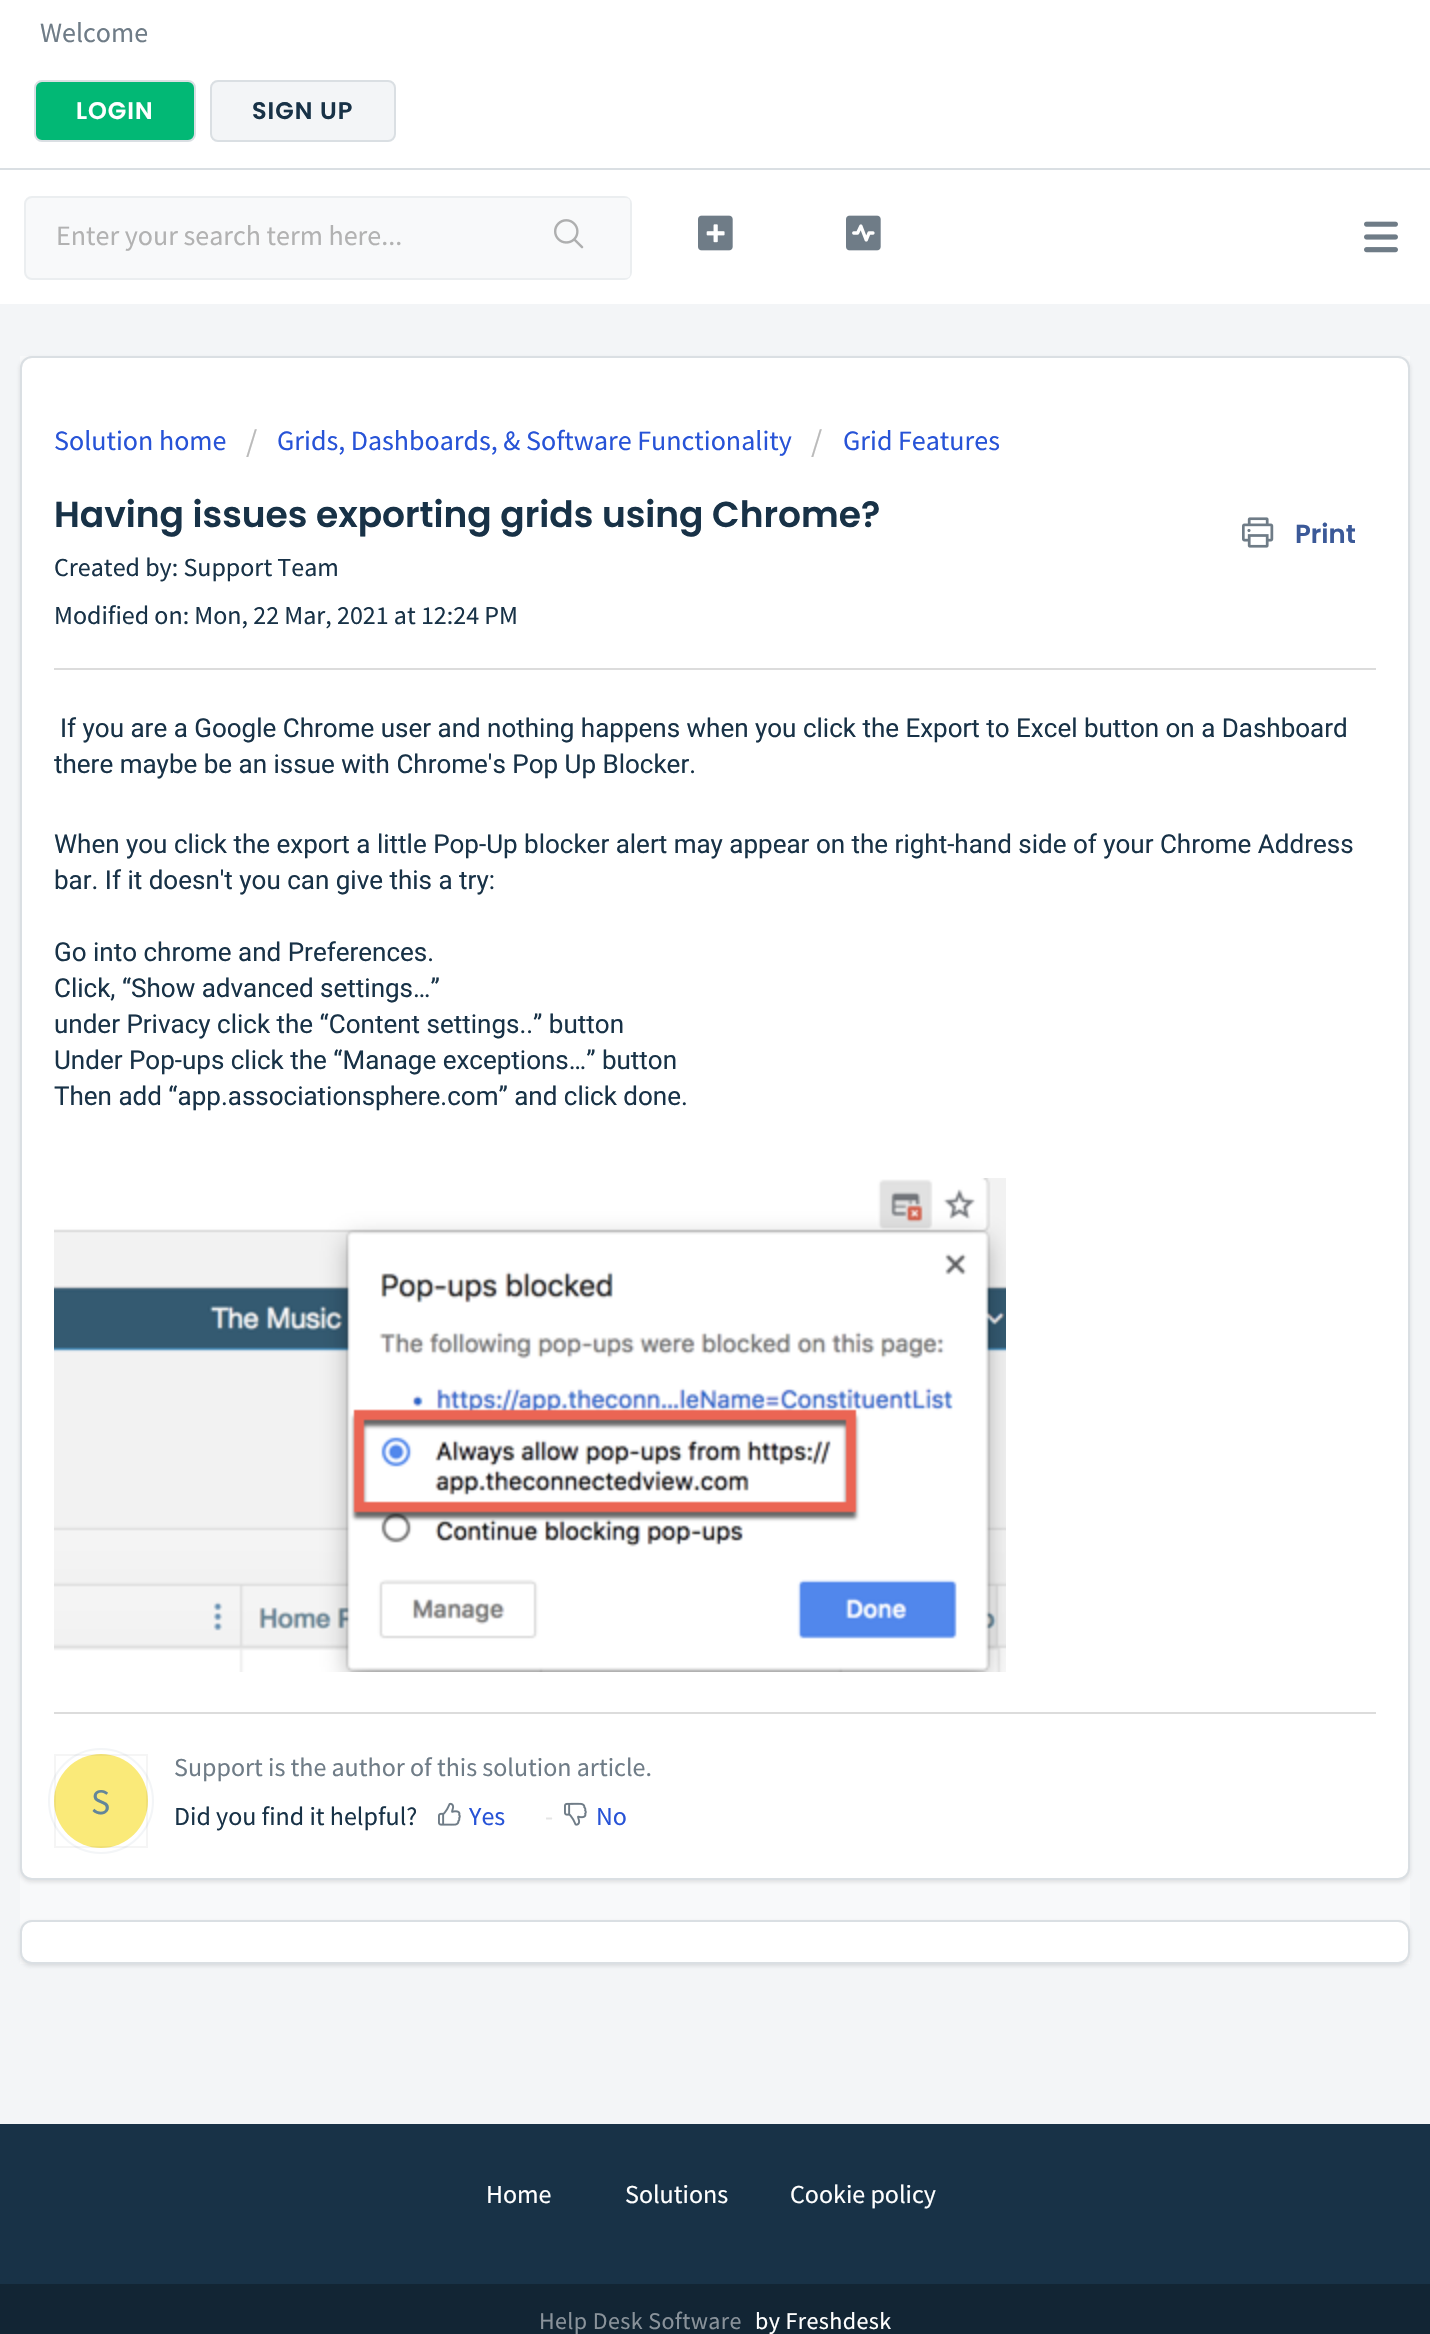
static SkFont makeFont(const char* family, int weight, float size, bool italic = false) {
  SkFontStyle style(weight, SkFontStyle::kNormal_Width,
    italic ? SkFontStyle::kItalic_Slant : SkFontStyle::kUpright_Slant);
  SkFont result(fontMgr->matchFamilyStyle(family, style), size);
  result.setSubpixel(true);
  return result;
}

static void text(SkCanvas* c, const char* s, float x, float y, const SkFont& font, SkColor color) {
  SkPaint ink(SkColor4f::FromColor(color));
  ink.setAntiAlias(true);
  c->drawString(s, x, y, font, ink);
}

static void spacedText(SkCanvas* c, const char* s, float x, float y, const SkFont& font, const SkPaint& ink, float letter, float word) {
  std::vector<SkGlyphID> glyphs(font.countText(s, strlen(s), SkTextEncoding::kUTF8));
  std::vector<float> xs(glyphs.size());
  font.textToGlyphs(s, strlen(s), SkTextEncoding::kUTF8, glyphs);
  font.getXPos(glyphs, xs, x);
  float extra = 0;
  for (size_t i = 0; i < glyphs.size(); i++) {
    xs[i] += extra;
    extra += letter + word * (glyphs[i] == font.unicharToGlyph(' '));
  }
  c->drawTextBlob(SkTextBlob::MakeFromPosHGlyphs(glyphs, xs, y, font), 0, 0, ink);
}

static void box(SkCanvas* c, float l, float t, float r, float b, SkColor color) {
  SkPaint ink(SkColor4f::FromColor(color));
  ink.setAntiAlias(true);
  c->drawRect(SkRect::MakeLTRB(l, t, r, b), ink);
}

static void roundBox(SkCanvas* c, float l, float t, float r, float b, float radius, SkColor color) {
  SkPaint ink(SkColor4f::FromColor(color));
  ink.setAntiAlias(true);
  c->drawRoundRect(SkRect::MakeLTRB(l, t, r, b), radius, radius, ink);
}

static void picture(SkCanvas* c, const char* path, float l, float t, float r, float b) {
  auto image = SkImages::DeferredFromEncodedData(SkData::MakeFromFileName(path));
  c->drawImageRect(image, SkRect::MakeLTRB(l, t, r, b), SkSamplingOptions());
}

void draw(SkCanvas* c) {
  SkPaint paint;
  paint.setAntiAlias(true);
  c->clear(0xfff3f5f7);
  box(c, 0, 0, 1430, 168, 0xffffffff);
  box(c, 0, 168, 1430, 170, 0xffdadfe3);
  SkFont face1 = makeFont("Source Sans Pro", 400, 28);
  text(c, "Welcome", 40, 42, face1, 0xff6f7c87);
  paint.setColor(0xff02b875);
  c->drawRoundRect(SkRect::MakeLTRB(35, 81, 195, 141), 7, 7, paint);
  paint.setStyle(SkPaint::kStroke_Style);
  paint.setStrokeWidth(2);
  paint.setColor(0xffdadfe3);
  c->drawRoundRect(SkRect::MakeLTRB(35, 81, 195, 141), 7, 7, paint);
  SkFont face2 = makeFont("Poppins", 600, 24);
  paint.setStyle(SkPaint::kFill_Style);
  paint.setColor(0xffffffff);
  spacedText(c, "LOGIN", 76, 119, face2, paint, 1, 0);
  paint.setColor(0xfff3f5f7);
  c->drawRoundRect(SkRect::MakeLTRB(211, 81, 395, 141), 7, 7, paint);
  paint.setStyle(SkPaint::kStroke_Style);
  paint.setColor(0xffdadfe3);
  c->drawRoundRect(SkRect::MakeLTRB(211, 81, 395, 141), 7, 7, paint);
  paint.setStyle(SkPaint::kFill_Style);
  paint.setColor(0xff183247);
  spacedText(c, "SIGN UP", 252, 119, face2, paint, 1, 0);
  box(c, 0, 170, 1430, 304, 0xffffffff);
  picture(c, "img_01.png", 1364, 221, 1398, 253);
  paint.setColor(0xfff8f9fa);
  c->drawRoundRect(SkRect::MakeLTRB(25, 197, 631, 279), 7, 7, paint);
  paint.setStyle(SkPaint::kStroke_Style);
  paint.setColor(0xffebeef0);
  c->drawRoundRect(SkRect::MakeLTRB(25, 197, 631, 279), 7, 7, paint);
  text(c, "Enter your search term here...", 56, 245, face1, 0xffb2b2b2);
  roundBox(c, 510, 198, 630, 278, 4, 0xfff8f9fa);
  picture(c, "img_02.png", 554, 219, 584, 249);
  picture(c, "img_03.png", 698, 215, 733, 251);
  picture(c, "img_04.png", 846, 215, 881, 251);
  box(c, 20, 356, 1410, 1964, 0xfff8f9fa);
  paint.setStyle(SkPaint::kFill_Style);
  paint.setColor(0x263f3f44);
  paint.setMaskFilter(SkMaskFilter::MakeBlur(kNormal_SkBlurStyle, 2));
  c->drawRoundRect(SkRect::MakeLTRB(20, 358, 1410, 1882), 12, 12, paint);
  paint.setMaskFilter(nullptr);
  paint.setColor(0xffffffff);
  c->drawRoundRect(SkRect::MakeLTRB(21, 357, 1409, 1879), 11, 11, paint);
  paint.setStyle(SkPaint::kStroke_Style);
  paint.setColor(0xffdadfe3);
  c->drawRoundRect(SkRect::MakeLTRB(21, 357, 1409, 1879), 11, 11, paint);
  text(c, "Solution home", 54, 450, face1, 0xff2753d7);
  SkFont face3 = makeFont("Source Sans Pro", 400, 32);
  text(c, "/", 246, 452, face3, 0xffbbbbbb);
  text(c, "Grids, Dashboards, & Software Functionality", 277, 450, face1, 0xff2753d7);
  text(c, "/", 811, 452, face3, 0xffbbbbbb);
  text(c, "Grid Features", 843, 450, face1, 0xff2753d7);
  SkFont face4 = makeFont("Poppins", 600, 36);
  text(c, "Having issues exporting grids using Chrome?", 54, 527, face4, 0xff183247);
  picture(c, "img_05.png", 1242, 517, 1274, 548);
  SkFont face5 = makeFont("Poppins", 600, 26);
  text(c, "Print", 1295, 543, face5, 0xff3b5998);
  SkFont face6 = makeFont("Source Sans Pro", 400, 26);
  text(c, "Created by: Support Team", 54, 576, face6, 0xff183247);
  text(c, "Modified on: Mon, 22 Mar, 2021 at 12:24 PM", 54, 624, face6, 0xff183247);
  box(c, 54, 668, 1376, 670, 0xffdcdcdc);
  SkFont face7 = makeFont("Roboto", 400, 26);
  text(c, "If you are a Google Chrome user and nothing happens when you click the Export to Excel button on a Dashboard", 60, 737, face7, 0xff183247);
  text(c, "there maybe be an issue with Chrome's Pop Up Blocker.", 54, 773, face7, 0xff183247);
  text(c, "When you click the export a little Pop-Up blocker alert may appear on the right-hand side of your Chrome Address", 54, 853, face7, 0xff183247);
  text(c, "bar. If it doesn't you can give this a try:", 54, 889, face7, 0xff183247);
  text(c, "Go into chrome and Preferences.", 54, 961, face7, 0xff183247);
  text(c, "Click, “Show advanced settings…”", 54, 997, face7, 0xff183247);
  text(c, "under Privacy click the “Content settings..” button", 54, 1033, face7, 0xff183247);
  text(c, "Under Pop-ups click the “Manage exceptions…” button", 54, 1069, face7, 0xff183247);
  text(c, "Then add “app.associationsphere.com” and click done.", 54, 1105, face7, 0xff183247);
  picture(c, "img_06.png", 54, 1178, 1006, 1672);
  box(c, 54, 1712, 1376, 1714, 0xffdcdcdc);
  text(c, "Support is the author of this solution article.", 174, 1776, face6, 0xff6f7c87);
  paint.setColor(0xfff3f5f7);
  c->drawCircle(101, 1801, 52, paint);
  paint.setStyle(SkPaint::kFill_Style);
  paint.setColor(0xfffaea79);
  c->drawCircle(101, 1801, 47, paint);
  paint.setStyle(SkPaint::kStroke_Style);
  paint.setColor(0x0a000000);
  c->drawRect(SkRect::MakeLTRB(55, 1755, 147, 1847), paint);
  SkFont face8 = makeFont("Source Sans Pro", 400, 36);
  text(c, "S", 91, 1814, face8, 0xff638699);
  text(c, "Did you find it helpful?", 174, 1825, face6, 0xff183247);
  picture(c, "img_07.png", 438, 1802, 461, 1826);
  text(c, "Yes", 469, 1825, face6, 0xff2753d7);
  text(c, "-", 545, 1825, face6, 0xffe5e5e5);
  picture(c, "img_08.png", 564, 1802, 587, 1826);
  text(c, "No", 596, 1825, face6, 0xff2753d7);
  paint.setStyle(SkPaint::kFill_Style);
  paint.setColor(0x263f3f44);
  paint.setMaskFilter(SkMaskFilter::MakeBlur(kNormal_SkBlurStyle, 2));
  c->drawRoundRect(SkRect::MakeLTRB(20, 1922, 1410, 1966), 12, 12, paint);
  paint.setMaskFilter(nullptr);
  paint.setColor(0xffffffff);
  c->drawRoundRect(SkRect::MakeLTRB(21, 1921, 1409, 1963), 11, 11, paint);
  paint.setStyle(SkPaint::kStroke_Style);
  paint.setColor(0xffdadfe3);
  c->drawRoundRect(SkRect::MakeLTRB(21, 1921, 1409, 1963), 11, 11, paint);
  box(c, 0, 2124, 1430, 2284, 0xff183247);
  text(c, "Home", 486, 2203, face6, 0xffffffff);
  text(c, "Solutions", 625, 2203, face6, 0xffffffff);
  text(c, "Cookie policy", 790, 2203, face6, 0xffffffff);
  box(c, 0, 2284, 1430, 2334, 0xff122534);
  SkFont face9 = makeFont("Source Sans Pro", 400, 24);
  paint.setStyle(SkPaint::kFill_Style);
  paint.setColor(0xff89929a);
  spacedText(c, "Help Desk Software", 539, 2329, face9, paint, 0.4f, 0);
  paint.setColor(0xffffffff);
  spacedText(c, "by Freshdesk", 755, 2329, face9, paint, 0.4f, 0);
}
